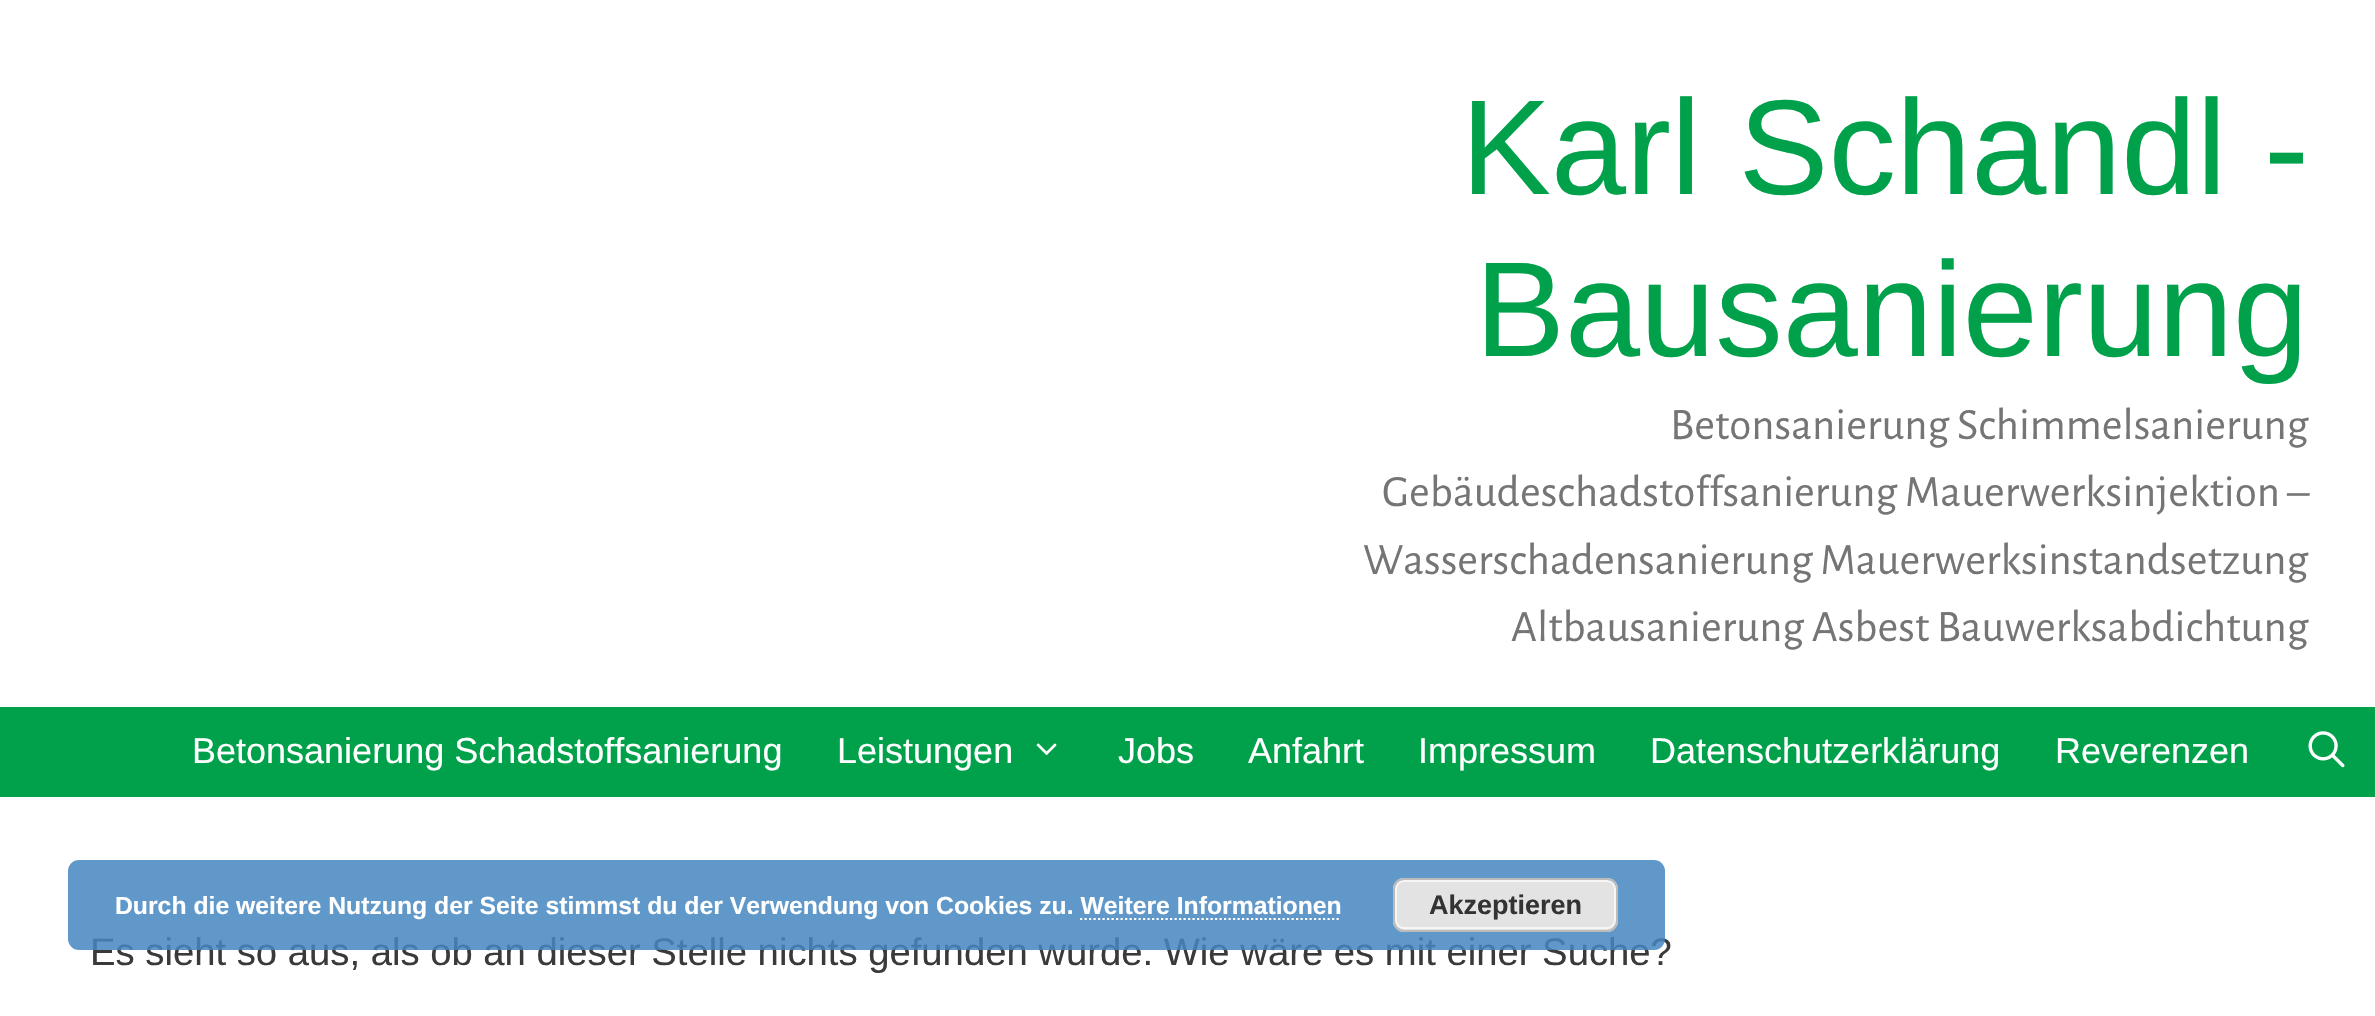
static SkFont makeFont(const char* family, int weight, float size, bool italic = false) {
  SkFontStyle style(weight, SkFontStyle::kNormal_Width,
    italic ? SkFontStyle::kItalic_Slant : SkFontStyle::kUpright_Slant);
  SkFont result(fontMgr->matchFamilyStyle(family, style), size);
  result.setSubpixel(true);
  return result;
}

static void text(SkCanvas* c, const char* s, float x, float y, const SkFont& font, SkColor color) {
  SkPaint ink(SkColor4f::FromColor(color));
  ink.setAntiAlias(true);
  c->drawString(s, x, y, font, ink);
}

static void box(SkCanvas* c, float l, float t, float r, float b, SkColor color) {
  SkPaint ink(SkColor4f::FromColor(color));
  ink.setAntiAlias(true);
  c->drawRect(SkRect::MakeLTRB(l, t, r, b), ink);
}

static void roundBox(SkCanvas* c, float l, float t, float r, float b, float radius, SkColor color) {
  SkPaint ink(SkColor4f::FromColor(color));
  ink.setAntiAlias(true);
  c->drawRoundRect(SkRect::MakeLTRB(l, t, r, b), radius, radius, ink);
}

static void picture(SkCanvas* c, const char* path, float l, float t, float r, float b) {
  auto image = SkImages::DeferredFromEncodedData(SkData::MakeFromFileName(path));
  c->drawImageRect(image, SkRect::MakeLTRB(l, t, r, b), SkSamplingOptions());
}

void draw(SkCanvas* c) {
  SkPaint paint;
  paint.setAntiAlias(true);
  c->clear(0xff00a14a);
  box(c, 0, 0, 2375, 707, 0xffffffff);
  SkFont face1 = makeFont("Liberation Sans", 400, 135);
  text(c, "Karl Schandl -", 1461, 194, face1, 0xff00a14a);
  text(c, "Bausanierung", 1475, 356, face1, 0xff00a14a);
  SkFont face2 = makeFont("Alegreya Sans", 400, 45);
  text(c, "Betonsanierung Schimmelsanierung", 1670, 439, face2, 0xff757575);
  text(c, "Gebäudeschadstoffsanierung Mauerwerksinjektion –", 1382, 506, face2, 0xff757575);
  text(c, "Wasserschadensanierung Mauerwerksinstandsetzung", 1363, 574, face2, 0xff757575);
  text(c, "Altbausanierung Asbest Bauwerksabdichtung", 1511, 641, face2, 0xff757575);
  SkFont face3 = makeFont("Liberation Sans", 400, 36);
  text(c, "Betonsanierung Schadstoffsanierung", 192, 763, face3, 0xffffffff);
  text(c, "Leistungen", 837, 763, face3, 0xffffffff);
  picture(c, "img_01.png", 1036, 743, 1057, 755);
  text(c, "Jobs", 1118, 763, face3, 0xffffffff);
  text(c, "Anfahrt", 1248, 763, face3, 0xffffffff);
  text(c, "Impressum", 1418, 763, face3, 0xffffffff);
  text(c, "Datenschutzerklärung", 1650, 763, face3, 0xffffffff);
  text(c, "Reverenzen", 2055, 763, face3, 0xffffffff);
  picture(c, "img_02.png", 2308, 731, 2345, 768);
  box(c, 0, 797, 2375, 1016, 0xffffffff);
  SkFont face4 = makeFont("Liberation Sans", 400, 38.25f);
  text(c, "Es sieht so aus, als ob an dieser Stelle nichts gefunden wurde. Wie wäre es mit einer Suche?", 90, 965, face4, 0xff3a3a3a);
  roundBox(c, 68, 860, 1665, 950, 11, 0xd94486bf);
  SkFont face5 = makeFont("Liberation Sans", 700, 24.75f);
  text(c, "Durch die weitere Nutzung der Seite stimmst du der Verwendung von Cookies zu. Weitere Informationen", 115, 914, face5, 0xffffffff);
  roundBox(c, 1393, 878, 1618, 932, 11, 0xffe3e3e3);
  paint.setStyle(SkPaint::kStroke_Style);
  paint.setStrokeWidth(2);
  paint.setColor(0xfff6f6f6);
  c->drawRoundRect(SkRect::MakeLTRB(1396, 881, 1615, 928), 8, 8, paint);
  paint.setColor(0xffbbbbbb);
  c->drawRoundRect(SkRect::MakeLTRB(1394, 879, 1617, 931), 10, 10, paint);
  SkFont face6 = makeFont("Liberation Sans", 700, 27);
  text(c, "Akzeptieren", 1429, 914, face6, 0xff333333);
  paint.setStrokeWidth(2.2f);
  paint.setColor(0xffffffff);
  paint.setPathEffect(SkDashPathEffect::Make({{2.25f, 2.25f}}, 0));
  c->drawPath(SkPathBuilder().moveTo(1080, 919).lineTo(1341, 919).detach(), paint);
  paint.setPathEffect(nullptr);
}
